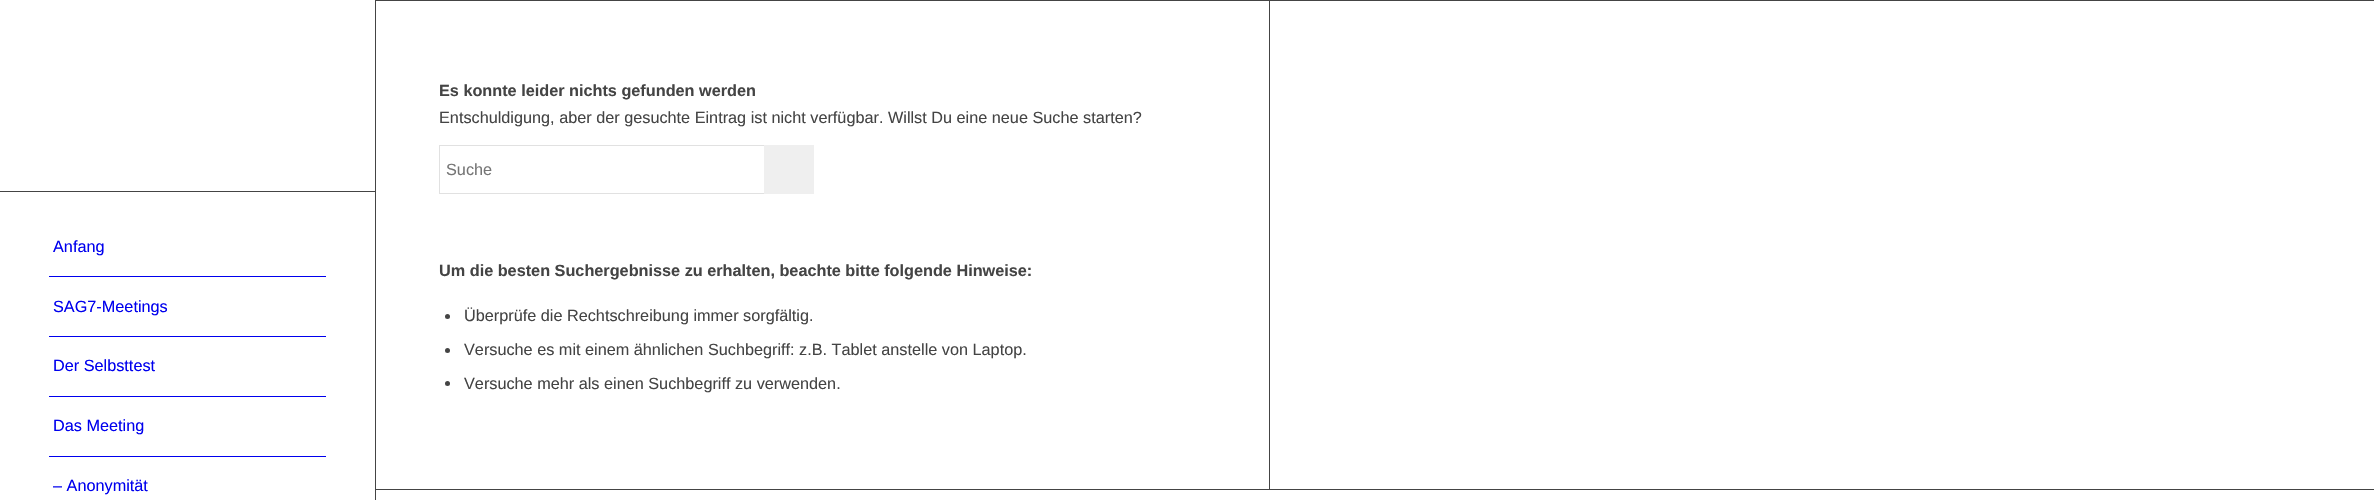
static SkFont makeFont(const char* family, int weight, float size, bool italic = false) {
  SkFontStyle style(weight, SkFontStyle::kNormal_Width,
    italic ? SkFontStyle::kItalic_Slant : SkFontStyle::kUpright_Slant);
  SkFont result(fontMgr->matchFamilyStyle(family, style), size);
  result.setSubpixel(true);
  return result;
}

static void text(SkCanvas* c, const char* s, float x, float y, const SkFont& font, SkColor color) {
  SkPaint ink(SkColor4f::FromColor(color));
  ink.setAntiAlias(true);
  c->drawString(s, x, y, font, ink);
}

static void box(SkCanvas* c, float l, float t, float r, float b, SkColor color) {
  SkPaint ink(SkColor4f::FromColor(color));
  ink.setAntiAlias(true);
  c->drawRect(SkRect::MakeLTRB(l, t, r, b), ink);
}

void draw(SkCanvas* c) {
  SkPaint paint;
  paint.setAntiAlias(true);
  c->clear(0xffffffff);
  box(c, 0, 191, 375, 192, 0xff444444);
  box(c, 49, 276, 326, 277, 0xff0000ee);
  SkFont face1 = makeFont("Liberation Sans", 400, 16.25f);
  text(c, "Anfang", 53, 252, face1, 0xff0000ee);
  box(c, 49, 336, 326, 337, 0xff0000ee);
  text(c, "SAG7-Meetings", 53, 312, face1, 0xff0000ee);
  box(c, 49, 396, 326, 397, 0xff0000ee);
  text(c, "Der Selbsttest", 53, 371, face1, 0xff0000ee);
  box(c, 49, 456, 326, 457, 0xff0000ee);
  text(c, "Das Meeting", 53, 431, face1, 0xff0000ee);
  text(c, "– Anonymität", 53, 491, face1, 0xff0000ee);
  box(c, 375, 0, 376, 500, 0xff444444);
  box(c, 376, 0, 2374, 1, 0xff444444);
  box(c, 1269, 1, 1270, 489, 0xff444444);
  SkFont face2 = makeFont("Liberation Sans", 700, 16.25f);
  text(c, "Es konnte leider nichts gefunden werden", 439, 96, face2, 0xff444444);
  text(c, "Entschuldigung, aber der gesuchte Eintrag ist nicht verfügbar. Willst Du eine neue Suche starten?", 439, 123, face1, 0xff444444);
  paint.setStyle(SkPaint::kStroke_Style);
  paint.setStrokeWidth(1);
  paint.setColor(0xffe1e1e1);
  c->drawRect(SkRect::MakeLTRB(439.5f, 145.5f, 813.5f, 193.5f), paint);
  text(c, "Suche", 446, 175, face1, 0xff757575);
  box(c, 764, 145, 814, 194, 0xffefefef);
  text(c, "Um die besten Suchergebnisse zu erhalten, beachte bitte folgende Hinweise:", 439, 276, face2, 0xff444444);
  paint.setStyle(SkPaint::kFill_Style);
  paint.setColor(0xff444444);
  c->drawCircle(447.5f, 316.5f, 2.5f, paint);
  text(c, "Überprüfe die Rechtschreibung immer sorgfältig.", 464, 321, face1, 0xff444444);
  c->drawCircle(447.5f, 350.5f, 2.5f, paint);
  text(c, "Versuche es mit einem ähnlichen Suchbegriff: z.B. Tablet anstelle von Laptop.", 464, 355, face1, 0xff444444);
  c->drawCircle(447.5f, 383.5f, 2.5f, paint);
  text(c, "Versuche mehr als einen Suchbegriff zu verwenden.", 464, 389, face1, 0xff444444);
  box(c, 376, 489, 2374, 490, 0xff444444);
}
